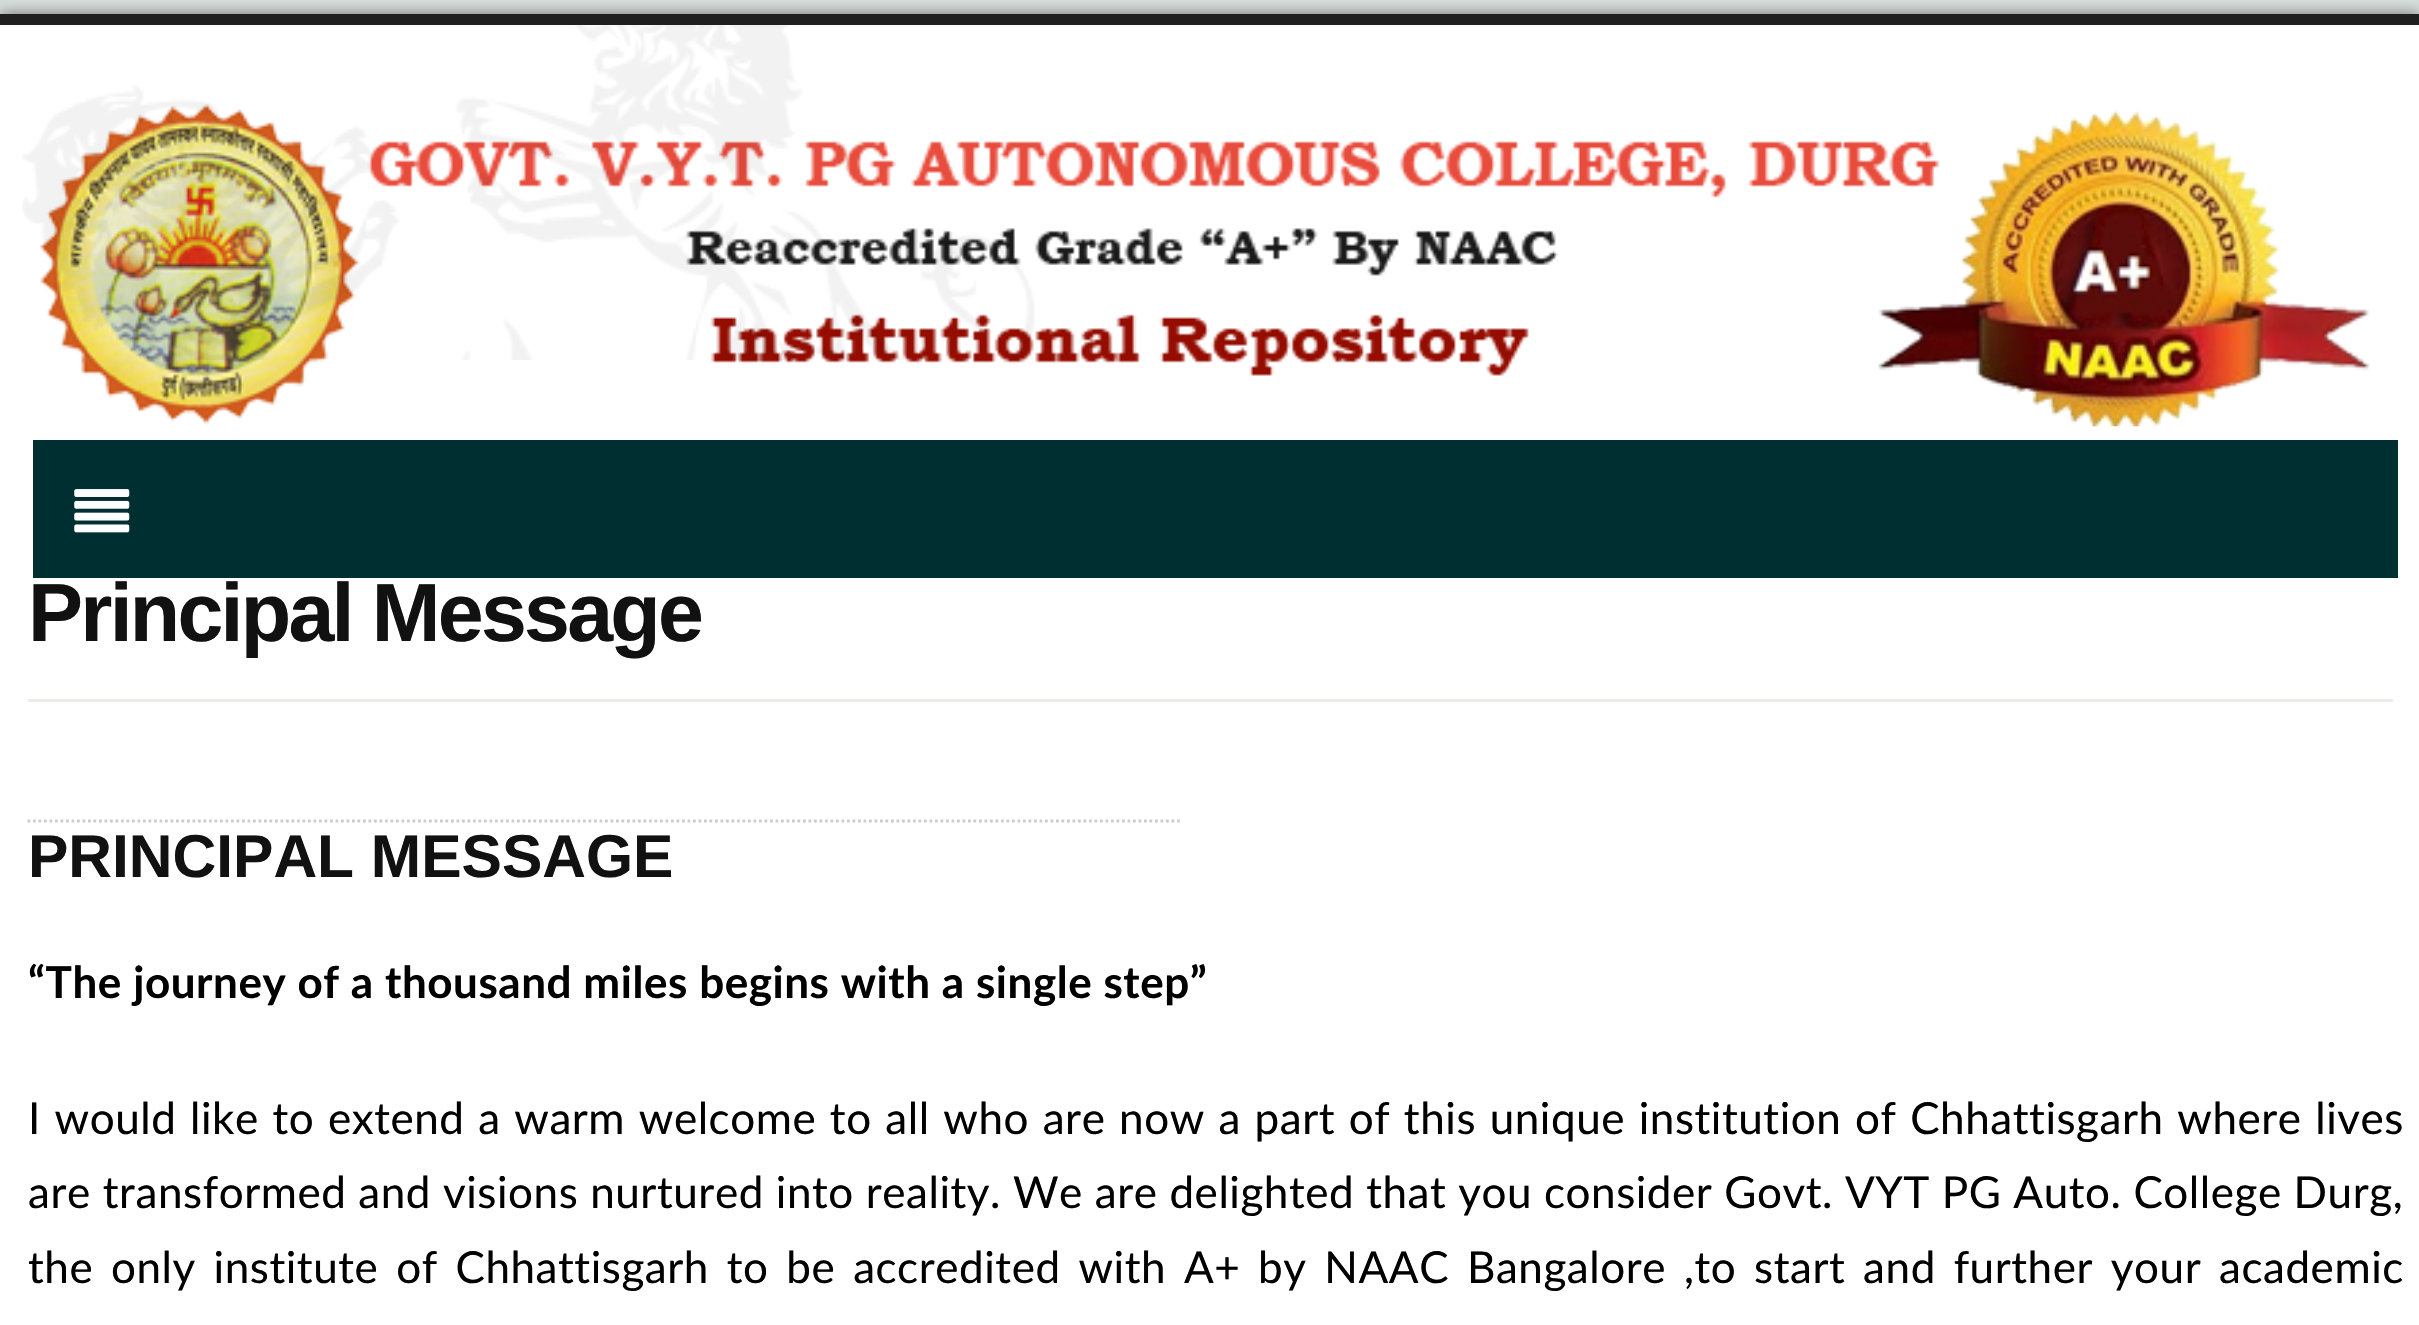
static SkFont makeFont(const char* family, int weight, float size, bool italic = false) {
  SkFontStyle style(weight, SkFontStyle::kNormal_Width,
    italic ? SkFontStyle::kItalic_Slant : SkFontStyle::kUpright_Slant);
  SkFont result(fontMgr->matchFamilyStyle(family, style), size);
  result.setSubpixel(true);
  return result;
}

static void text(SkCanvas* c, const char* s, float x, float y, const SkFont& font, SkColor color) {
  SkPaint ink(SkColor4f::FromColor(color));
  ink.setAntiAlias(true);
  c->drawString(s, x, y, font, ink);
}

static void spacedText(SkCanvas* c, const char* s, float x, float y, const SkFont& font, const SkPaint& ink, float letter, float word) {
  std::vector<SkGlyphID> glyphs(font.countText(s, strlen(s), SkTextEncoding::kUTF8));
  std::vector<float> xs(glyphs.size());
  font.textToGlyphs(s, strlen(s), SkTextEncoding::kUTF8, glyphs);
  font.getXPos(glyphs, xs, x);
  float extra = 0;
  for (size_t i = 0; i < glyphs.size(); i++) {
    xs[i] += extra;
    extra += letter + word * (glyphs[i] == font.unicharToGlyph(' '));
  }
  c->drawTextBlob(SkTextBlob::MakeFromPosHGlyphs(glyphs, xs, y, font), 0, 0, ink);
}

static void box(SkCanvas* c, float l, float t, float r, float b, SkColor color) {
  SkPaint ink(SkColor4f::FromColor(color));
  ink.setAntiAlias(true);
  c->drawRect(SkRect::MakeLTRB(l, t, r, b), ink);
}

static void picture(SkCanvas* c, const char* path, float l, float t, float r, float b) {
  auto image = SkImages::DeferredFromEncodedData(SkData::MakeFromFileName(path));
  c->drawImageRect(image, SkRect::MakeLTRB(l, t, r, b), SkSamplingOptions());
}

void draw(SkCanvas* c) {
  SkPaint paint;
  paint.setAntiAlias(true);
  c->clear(0xffd7dedc);
  paint.setColor(0x80000000);
  paint.setMaskFilter(SkMaskFilter::MakeBlur(kNormal_SkBlurStyle, 7));
  c->drawRect(SkRect::MakeLTRB(0, 14, 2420, 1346), paint);
  paint.setMaskFilter(nullptr);
  box(c, 0, 28, 2419, 1325, 0xffffffff);
  box(c, 0, 14, 2419, 25, 0xff1f1f1f);
  box(c, 0, 25, 2419, 28, 0xfffcfcfc);
  picture(c, "img_02.png", 40, 103, 2370, 427);
  picture(c, "img_01.png", 22, 25, 1035, 360);
  box(c, 33, 440, 2398, 578, 0xff002f31);
  picture(c, "img_03.png", 74, 489, 130, 533);
  box(c, 28, 699, 2393, 702, 0xffebebe9);
  SkFont face1 = makeFont("Liberation Sans", 700, 82.5f);
  paint.setColor(0xff111111);
  spacedText(c, "Principal Message", 28, 641, face1, paint, -2.75f, 0);
  paint.setStyle(SkPaint::kStroke_Style);
  paint.setStrokeWidth(2.8f);
  paint.setColor(0xffcccccc);
  paint.setPathEffect(SkDashPathEffect::Make({{2.75f, 2.75f}}, 0));
  c->drawPath(SkPathBuilder().moveTo(27.5f, 821).lineTo(1182.5f, 821).detach(), paint);
  paint.setPathEffect(nullptr);
  SkFont face2 = makeFont("Liberation Sans", 700, 60.5f);
  text(c, "PRINCIPAL MESSAGE", 28, 877, face2, 0xff111111);
  SkFont face3 = makeFont("Lato", 700, 44);
  paint.setStyle(SkPaint::kFill_Style);
  paint.setColor(0xff000000);
  spacedText(c, "“The journey of a thousand miles begins with a single step”", 28, 998, face3, paint, 0.55f, 0);
  SkFont face4 = makeFont("Lato", 400, 44);
  spacedText(c, "I would like to extend a warm welcome to all who are now a part of this unique institution of Chhattisgarh where lives", 28, 1134, face4, paint, 0.55f, 1.85f);
  spacedText(c, "are transformed and visions nurtured into reality. We are delighted that you consider Govt. VYT PG Auto. College Durg,", 28, 1208, face4, paint, 0.55f, 0.1f);
  spacedText(c, "the only institute of Chhattisgarh to be accredited with A+ by NAAC Bangalore ,to start and further your academic", 28, 1283, face4, paint, 0.55f, 6);
}
